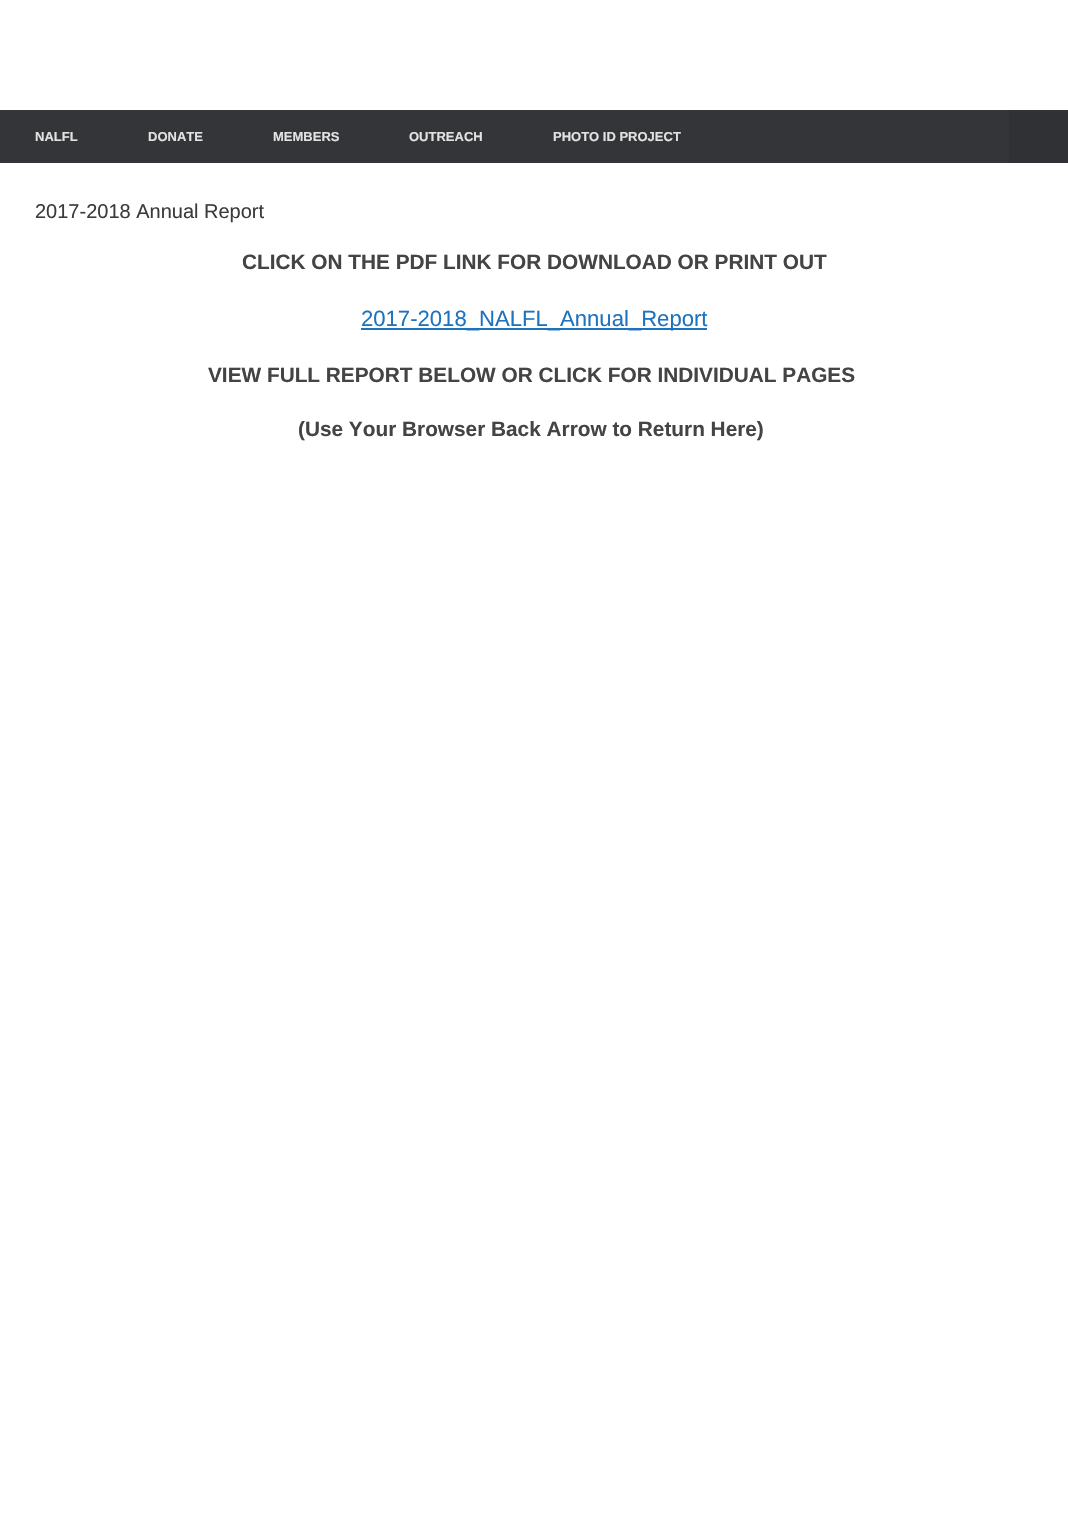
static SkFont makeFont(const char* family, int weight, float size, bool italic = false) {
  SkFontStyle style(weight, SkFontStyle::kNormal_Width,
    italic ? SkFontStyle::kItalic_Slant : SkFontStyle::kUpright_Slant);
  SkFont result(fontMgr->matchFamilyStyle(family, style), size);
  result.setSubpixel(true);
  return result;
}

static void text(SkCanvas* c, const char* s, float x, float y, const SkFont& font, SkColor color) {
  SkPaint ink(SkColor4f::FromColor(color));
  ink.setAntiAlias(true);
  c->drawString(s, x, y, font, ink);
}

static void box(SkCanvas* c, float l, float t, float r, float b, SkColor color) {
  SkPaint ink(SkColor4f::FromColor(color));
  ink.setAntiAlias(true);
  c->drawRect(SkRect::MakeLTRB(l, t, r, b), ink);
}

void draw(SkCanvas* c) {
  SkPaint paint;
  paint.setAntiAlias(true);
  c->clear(0xffffffff);
  box(c, 0, 110, 1009, 163, 0xff343538);
  SkFont face1 = makeFont("Liberation Sans", 700, 13);
  text(c, "NALFL", 35, 141, face1, 0xffe2e2e2);
  text(c, "DONATE", 148, 141, face1, 0xffe2e2e2);
  text(c, "MEMBERS", 273, 141, face1, 0xffe2e2e2);
  text(c, "OUTREACH", 409, 141, face1, 0xffe2e2e2);
  text(c, "PHOTO ID PROJECT", 553, 141, face1, 0xffe2e2e2);
  box(c, 1009, 110, 1068, 163, 0xff303134);
  SkFont face2 = makeFont("Liberation Sans", 400, 20);
  text(c, "2017-2018 Annual Report", 35, 218, face2, 0xff3b3b3b);
  SkFont face3 = makeFont("Liberation Sans", 700, 20.8f);
  text(c, "CLICK ON THE PDF LINK FOR DOWNLOAD OR PRINT OUT", 242, 269, face3, 0xff444444);
  box(c, 361, 328, 707, 330, 0xff1e73be);
  SkFont face4 = makeFont("Liberation Sans", 400, 22.1f);
  text(c, "2017-2018_NALFL_Annual_Report", 361, 326, face4, 0xff1e73be);
  text(c, "VIEW FULL REPORT BELOW OR CLICK FOR INDIVIDUAL PAGES", 208, 382, face3, 0xff444444);
  text(c, "(Use Your Browser Back Arrow to Return Here)", 298, 436, face3, 0xff444444);
}
